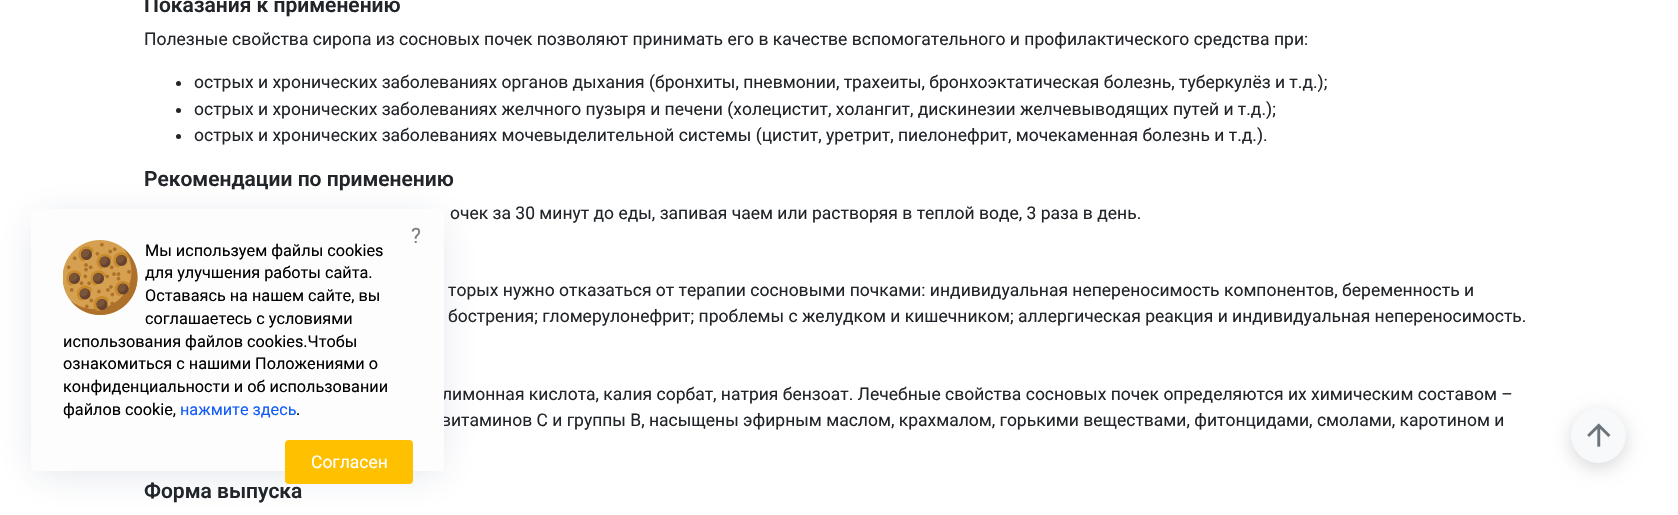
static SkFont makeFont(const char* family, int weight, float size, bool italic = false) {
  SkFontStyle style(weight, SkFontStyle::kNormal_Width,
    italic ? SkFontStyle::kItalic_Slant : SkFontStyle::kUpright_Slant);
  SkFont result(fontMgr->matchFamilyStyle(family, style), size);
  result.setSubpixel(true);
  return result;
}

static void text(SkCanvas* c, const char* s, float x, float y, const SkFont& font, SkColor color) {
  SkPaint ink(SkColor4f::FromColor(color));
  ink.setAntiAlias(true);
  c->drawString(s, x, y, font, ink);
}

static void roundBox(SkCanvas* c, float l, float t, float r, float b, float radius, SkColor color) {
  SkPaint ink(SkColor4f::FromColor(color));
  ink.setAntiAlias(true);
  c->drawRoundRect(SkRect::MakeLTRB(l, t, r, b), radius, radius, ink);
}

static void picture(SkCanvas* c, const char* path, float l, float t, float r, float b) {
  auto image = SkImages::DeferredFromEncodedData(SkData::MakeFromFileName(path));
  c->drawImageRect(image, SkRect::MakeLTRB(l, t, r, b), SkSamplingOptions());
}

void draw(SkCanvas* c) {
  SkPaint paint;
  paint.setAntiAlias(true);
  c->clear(0xffffffff);
  SkFont face1 = makeFont("Roboto", 600, 21);
  text(c, "Показания к применению", 144, 12, face1, 0xff212529);
  SkFont face2 = makeFont("Roboto", 400, 17.5f);
  text(c, "Полезные свойства сиропа из сосновых почек позволяют принимать его в качестве вспомогательного и профилактического средства при:", 144, 45, face2, 0xff212529);
  paint.setColor(0xff212529);
  c->drawCircle(178.5f, 83.5f, 2.5f, paint);
  text(c, "острых и хронических заболеваниях органов дыхания (бронхиты, пневмонии, трахеиты, бронхоэктатическая болезнь, туберкулёз и т.д.);", 194, 88, face2, 0xff212529);
  c->drawCircle(178.5f, 110.5f, 2.5f, paint);
  text(c, "острых и хронических заболеваниях желчного пузыря и печени (холецистит, холангит, дискинезии желчевыводящих путей и т.д.);", 194, 115, face2, 0xff212529);
  c->drawCircle(178.5f, 136.5f, 2.5f, paint);
  text(c, "острых и хронических заболеваниях мочевыделительной системы (цистит, уретрит, пиелонефрит, мочекаменная болезнь и т.д.).", 194, 141, face2, 0xff212529);
  text(c, "Рекомендации по применению", 144, 186, face1, 0xff212529);
  text(c, "очек за 30 минут до еды, запивая чаем или растворяя в теплой воде, 3 раза в день.", 450, 219, face2, 0xff212529);
  text(c, "торых нужно отказаться от терапии сосновыми почками: индивидуальная непереносимость компонентов, беременность и", 448, 296, face2, 0xff212529);
  text(c, "бострения; гломерулонефрит; проблемы с желудком и кишечником; аллергическая реакция и индивидуальная непереносимость.", 448, 322, face2, 0xff212529);
  text(c, "лимонная кислота, калия сорбат, натрия бензоат. Лечебные свойства сосновых почек определяются их химическим составом –", 442, 400, face2, 0xff212529);
  text(c, "витаминов С и группы В, насыщены эфирным маслом, крахмалом, горькими веществами, фитонцидами, смолами, каротином и", 441, 426, face2, 0xff212529);
  text(c, "Форма выпуска", 144, 498, face1, 0xff212529);
  paint.setColor(0x26223865);
  paint.setMaskFilter(SkMaskFilter::MakeBlur(kNormal_SkBlurStyle, 19));
  c->drawRect(SkRect::MakeLTRB(38, 221, 438, 471), paint);
  paint.setMaskFilter(nullptr);
  roundBox(c, 31, 209, 444, 471, 4, 0xfffdfdfd);
  SkFont face3 = makeFont("Roboto", 400, 21);
  text(c, "?", 411, 243, face3, 0xff7f7f7f);
  picture(c, "img_01.png", 63, 240, 138, 315);
  SkFont face4 = makeFont("Roboto", 400, 16.25f);
  text(c, "Мы используем файлы cookies", 145, 256, face4, 0xff000000);
  text(c, "для улучшения работы сайта.", 145, 278, face4, 0xff000000);
  text(c, "Оставаясь на нашем сайте, вы", 145, 301, face4, 0xff000000);
  text(c, "соглашаетесь с условиями", 145, 324, face4, 0xff000000);
  text(c, "использования файлов cookies.Чтобы", 63, 347, face4, 0xff000000);
  text(c, "ознакомиться с нашими Положениями о", 63, 369, face4, 0xff000000);
  text(c, "конфиденциальности и об использовании", 63, 392, face4, 0xff000000);
  text(c, "файлов cookie,", 63, 415, face4, 0xff000000);
  text(c, "нажмите здесь", 180, 415, face4, 0xff115cfa);
  text(c, ".", 296, 415, face4, 0xff000000);
  roundBox(c, 285, 440, 413, 484, 4, 0xffffc000);
  text(c, "Согласен", 311, 468, face2, 0xffffffff);
  paint.setColor(0x26000000);
  paint.setMaskFilter(SkMaskFilter::MakeBlur(kNormal_SkBlurStyle, 9));
  c->drawRoundRect(SkRect::MakeLTRB(1571, 413, 1626, 468), 27.5f, 27.5f, paint);
  paint.setMaskFilter(nullptr);
  paint.setColor(0xfff8f9fa);
  c->drawCircle(1598.5f, 435.5f, 27, paint);
  paint.setStyle(SkPaint::kStroke_Style);
  paint.setStrokeWidth(1);
  c->drawCircle(1598.5f, 435.5f, 27, paint);
  picture(c, "img_02.png", 1587, 423, 1611, 447);
}
